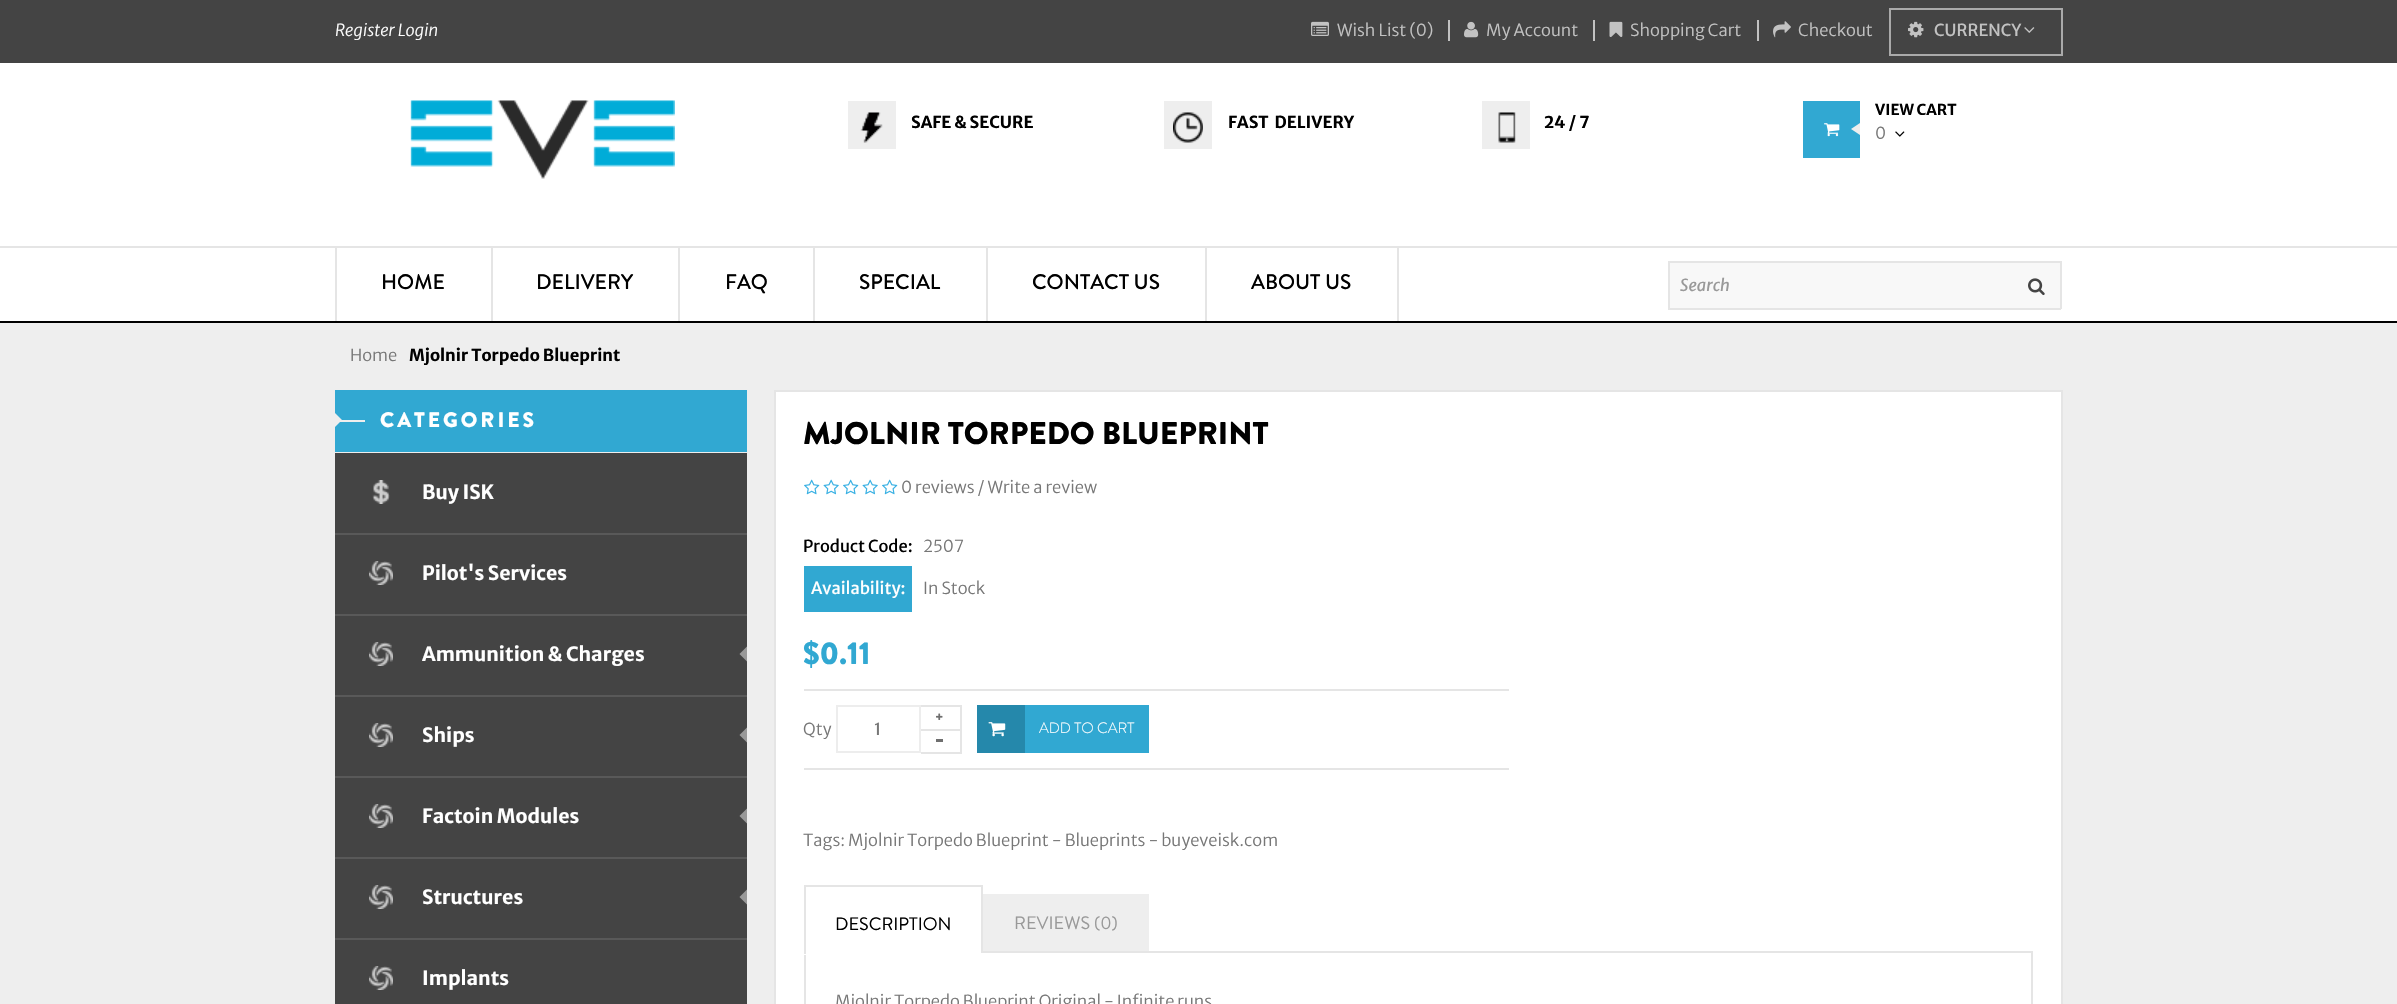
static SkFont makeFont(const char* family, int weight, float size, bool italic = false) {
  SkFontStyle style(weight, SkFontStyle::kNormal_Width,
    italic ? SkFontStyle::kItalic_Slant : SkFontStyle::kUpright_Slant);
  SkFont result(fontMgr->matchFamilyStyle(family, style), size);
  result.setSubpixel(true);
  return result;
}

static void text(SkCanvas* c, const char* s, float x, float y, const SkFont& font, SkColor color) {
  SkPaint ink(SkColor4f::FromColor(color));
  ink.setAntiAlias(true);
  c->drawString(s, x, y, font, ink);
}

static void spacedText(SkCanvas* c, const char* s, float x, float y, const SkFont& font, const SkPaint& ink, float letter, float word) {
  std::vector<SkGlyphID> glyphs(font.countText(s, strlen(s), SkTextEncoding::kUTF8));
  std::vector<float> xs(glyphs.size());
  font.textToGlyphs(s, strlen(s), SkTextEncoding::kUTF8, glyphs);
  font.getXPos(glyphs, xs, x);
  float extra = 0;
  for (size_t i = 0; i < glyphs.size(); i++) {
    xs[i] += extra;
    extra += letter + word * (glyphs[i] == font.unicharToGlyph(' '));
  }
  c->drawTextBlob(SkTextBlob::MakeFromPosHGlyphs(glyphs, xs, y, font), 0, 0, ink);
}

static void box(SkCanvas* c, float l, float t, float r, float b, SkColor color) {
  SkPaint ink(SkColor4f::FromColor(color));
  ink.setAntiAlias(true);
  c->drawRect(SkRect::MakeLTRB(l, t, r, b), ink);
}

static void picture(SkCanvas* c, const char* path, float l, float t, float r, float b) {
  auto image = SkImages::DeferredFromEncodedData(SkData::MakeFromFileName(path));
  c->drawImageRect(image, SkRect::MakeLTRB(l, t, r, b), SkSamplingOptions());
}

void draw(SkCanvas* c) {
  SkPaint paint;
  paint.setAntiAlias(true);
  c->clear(0xffeeeeee);
  box(c, 0, 0, 2397, 63, 0xff444444);
  SkFont face1 = makeFont("Merriweather Sans", 300, 16.5f, true);
  text(c, "Register Login", 335, 36, face1, 0xffffffff);
  box(c, 1448, 20, 1450, 41, 0xffc2c2c2);
  picture(c, "img_01.png", 1311, 21, 1329, 36);
  SkFont face2 = makeFont("Merriweather Sans", 300, 16.5f);
  text(c, "Wish List (0)", 1337, 36, face2, 0xffc2c2c2);
  box(c, 1593, 20, 1595, 41, 0xffc2c2c2);
  picture(c, "img_02.png", 1464, 21, 1479, 38);
  text(c, "My Account", 1486, 36, face2, 0xffc2c2c2);
  box(c, 1757, 20, 1759, 41, 0xffc2c2c2);
  picture(c, "img_03.png", 1609, 21, 1623, 37);
  text(c, "Shopping Cart", 1630, 36, face2, 0xffc2c2c2);
  picture(c, "img_04.png", 1773, 21, 1791, 38);
  text(c, "Checkout", 1798, 36, face2, 0xffc2c2c2);
  paint.setStyle(SkPaint::kStroke_Style);
  paint.setStrokeWidth(2);
  paint.setColor(0xffaaaaaa);
  c->drawRect(SkRect::MakeLTRB(1890, 9, 2062, 55), paint);
  picture(c, "img_05.png", 1908, 21, 1924, 38);
  SkFont face3 = makeFont("Merriweather Sans", 400, 16.5f);
  text(c, "CURRENCY", 1934, 36, face3, 0xffc2c2c2);
  picture(c, "img_06.png", 2024, 27, 2035, 33);
  box(c, 0, 63, 2397, 321, 0xffffffff);
  box(c, 0, 246, 2397, 248, 0xffe5e5e5);
  box(c, 0, 321, 2397, 323, 0xff000000);
  box(c, 335, 248, 337, 321, 0xffe5e5e5);
  SkFont face4 = makeFont("Brandon Grotesque", 500, 21);
  text(c, "HOME", 381, 289, face4, 0xff000000);
  box(c, 491, 248, 493, 321, 0xffe5e5e5);
  text(c, "DELIVERY", 536, 289, face4, 0xff000000);
  box(c, 678, 248, 680, 321, 0xffe5e5e5);
  text(c, "FAQ", 725, 289, face4, 0xff000000);
  box(c, 813, 248, 815, 321, 0xffe5e5e5);
  text(c, "SPECIAL", 859, 289, face4, 0xff000000);
  box(c, 986, 248, 988, 321, 0xffe5e5e5);
  text(c, "CONTACT US", 1032, 289, face4, 0xff000000);
  box(c, 1397, 248, 1399, 321, 0xffe5e5e5);
  box(c, 1205, 248, 1207, 321, 0xffe5e5e5);
  text(c, "ABOUT US", 1251, 289, face4, 0xff000000);
  picture(c, "img_07.png", 410, 100, 675, 179);
  box(c, 848, 101, 896, 149, 0xffeeeeee);
  picture(c, "img_08.png", 860, 112, 883, 143);
  SkFont face5 = makeFont("Merriweather Sans", 700, 16.5f);
  text(c, "SAFE & SECURE", 911, 128, face5, 0xff000000);
  box(c, 1164, 101, 1212, 149, 0xffeeeeee);
  picture(c, "img_09.png", 1173, 112, 1203, 143);
  text(c, "FAST  DELIVERY", 1228, 128, face5, 0xff000000);
  box(c, 1482, 101, 1530, 149, 0xffeeeeee);
  picture(c, "img_10.png", 1498, 112, 1516, 143);
  text(c, "24 / 7", 1544, 128, face5, 0xff000000);
  box(c, 1803, 101, 1860, 158, 0xff31a8d2);
  picture(c, "img_11.png", 1824, 123, 1840, 137);
  paint.setStyle(SkPaint::kFill_Style);
  paint.setColor(0xffeeeeee);
  c->drawPath(SkPathBuilder().moveTo(1860, 123).lineTo(1860, 135).lineTo(1851, 129).close().detach(), paint);
  SkFont face6 = makeFont("Merriweather Sans", 700, 15);
  text(c, "VIEW CART", 1875, 115, face6, 0xff000000);
  text(c, "0", 1875, 139, face2, 0xff777777);
  picture(c, "img_12.png", 1895, 131, 1905, 137);
  box(c, 1670, 263, 2060, 308, 0xfff8f8f8);
  box(c, 1668, 261, 2061, 263, 0xffe5e5e5);
  box(c, 1668, 308, 2013, 310, 0xffe5e5e5);
  box(c, 1668, 261, 1670, 309, 0xffe5e5e5);
  SkFont face7 = makeFont("Merriweather Sans", 400, 16.5f, true);
  text(c, "Search", 1680, 291, face7, 0xff999999);
  box(c, 2060, 261, 2062, 309, 0xffe5e5e5);
  box(c, 2013, 308, 2061, 310, 0xffe5e5e5);
  picture(c, "img_13.png", 2028, 278, 2045, 296);
  text(c, "Home", 350, 361, face2, 0xff777777);
  text(c, "Mjolnir Torpedo Blueprint", 409, 361, face5, 0xff000000);
  box(c, 335, 390, 747, 452, 0xff31a8d2);
  c->drawPath(SkPathBuilder().moveTo(334.5f, 427.5f).lineTo(334.5f, 412.5f).lineTo(342, 420).close().detach(), paint);
  SkFont face8 = makeFont("Brandon Grotesque", 900, 21);
  paint.setColor(0xffffffff);
  spacedText(c, "CATEGORIES", 380, 427, face8, paint, 3, 0);
  box(c, 335, 420, 365, 422, 0xffeeeeee);
  box(c, 335, 453, 747, 1004, 0xff444444);
  box(c, 335, 533, 747, 535, 0xff595959);
  picture(c, "img_14.png", 372, 480, 390, 504);
  SkFont face9 = makeFont("Merriweather Sans", 700, 19.5f);
  text(c, "Buy ISK", 422, 499, face9, 0xffffffff);
  box(c, 335, 614, 747, 616, 0xff595959);
  picture(c, "img_15.png", 369, 561, 393, 585);
  text(c, "Pilot's Services", 422, 580, face9, 0xffffffff);
  box(c, 335, 695, 747, 697, 0xff595959);
  picture(c, "img_15.png", 369, 642, 393, 666);
  text(c, "Ammunition & Charges", 422, 661, face9, 0xffffffff);
  paint.setColor(0xff999999);
  c->drawPath(SkPathBuilder().moveTo(747, 646.5f).lineTo(747, 661.5f).lineTo(739.5f, 654).close().detach(), paint);
  box(c, 335, 776, 747, 778, 0xff595959);
  picture(c, "img_15.png", 369, 723, 393, 747);
  text(c, "Ships", 422, 742, face9, 0xffffffff);
  c->drawPath(SkPathBuilder().moveTo(747, 727.5f).lineTo(747, 742.5f).lineTo(739.5f, 735).close().detach(), paint);
  box(c, 335, 857, 747, 859, 0xff595959);
  picture(c, "img_15.png", 369, 804, 393, 828);
  text(c, "Factoin Modules", 422, 823, face9, 0xffffffff);
  c->drawPath(SkPathBuilder().moveTo(747, 808.5f).lineTo(747, 823.5f).lineTo(739.5f, 816).close().detach(), paint);
  box(c, 335, 938, 747, 940, 0xff595959);
  picture(c, "img_15.png", 369, 885, 393, 909);
  text(c, "Structures", 422, 904, face9, 0xffffffff);
  c->drawPath(SkPathBuilder().moveTo(747, 889.5f).lineTo(747, 904.5f).lineTo(739.5f, 897).close().detach(), paint);
  picture(c, "img_15.png", 369, 966, 393, 990);
  text(c, "Implants", 422, 985, face9, 0xffffffff);
  paint.setColor(0xffffffff);
  c->drawRect(SkRect::MakeLTRB(775, 391, 2062, 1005), paint);
  paint.setStyle(SkPaint::kStroke_Style);
  paint.setColor(0xffe5e5e5);
  c->drawRect(SkRect::MakeLTRB(775, 391, 2062, 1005), paint);
  SkFont face10 = makeFont("Brandon Grotesque", 900, 31.5f);
  text(c, "MJOLNIR TORPEDO BLUEPRINT", 803, 444, face10, 0xff000000);
  picture(c, "img_16.png", 804, 479, 820, 495);
  picture(c, "img_17.png", 823, 479, 839, 495);
  picture(c, "img_16.png", 843, 479, 859, 495);
  picture(c, "img_17.png", 862, 479, 878, 495);
  picture(c, "img_16.png", 882, 479, 898, 495);
  text(c, "0 reviews / Write a review", 901, 493, face2, 0xff777777);
  text(c, "Product Code:", 803, 552, face3, 0xff000000);
  text(c, "2507", 923, 552, face2, 0xff777777);
  box(c, 804, 566, 912, 612, 0xff31a8d2);
  text(c, "Availability:", 811, 594, face3, 0xffffffff);
  text(c, "In Stock", 923, 594, face2, 0xff777777);
  text(c, "$0.11", 803, 664, face10, 0xff31a8d2);
  box(c, 804, 689, 1509, 691, 0xffe5e5e5);
  box(c, 804, 768, 1509, 770, 0xffe5e5e5);
  text(c, "Qty", 803, 735, face2, 0xff777777);
  paint.setColor(0xffededed);
  c->drawRect(SkRect::MakeLTRB(837, 706, 920, 752), paint);
  text(c, "1", 874, 735, face3, 0xff777777);
  box(c, 921, 705, 962, 707, 0xffe5e5e5);
  box(c, 960, 705, 962, 729, 0xffe5e5e5);
  picture(c, "img_18.png", 936, 713, 943, 720);
  box(c, 921, 729, 962, 731, 0xffe5e5e5);
  box(c, 960, 729, 962, 753, 0xffe5e5e5);
  box(c, 921, 752, 962, 754, 0xffe5e5e5);
  box(c, 936, 739, 943, 742, 0xff6f6f6f);
  box(c, 1025, 705, 1149, 753, 0xff31a8d2);
  box(c, 977, 705, 1025, 753, 0xff2588ab);
  picture(c, "img_19.png", 988, 722, 1006, 737);
  SkFont face11 = makeFont("Brandon Grotesque", 300, 15);
  text(c, "ADD TO CART", 1039, 733, face11, 0xffffffff);
  text(c, "Tags: Mjolnir Torpedo Blueprint - Blueprints - buyeveisk.com", 803, 846, face2, 0xff777777);
  box(c, 983, 951, 2033, 953, 0xffe5e5e5);
  box(c, 804, 885, 983, 887, 0xffe5e5e5);
  box(c, 981, 885, 983, 954, 0xffe5e5e5);
  box(c, 804, 953, 806, 1004, 0xffe5e5e5);
  box(c, 804, 953, 983, 955, 0xffffffff);
  box(c, 804, 885, 806, 954, 0xffe5e5e5);
  SkFont face12 = makeFont("Brandon Grotesque", 400, 18);
  text(c, "DESCRIPTION", 835, 930, face12, 0xff000000);
  box(c, 983, 894, 1149, 951, 0xffeeeeee);
  text(c, "REVIEWS (0)", 1014, 929, face12, 0xff999999);
  box(c, 2031, 953, 2033, 1004, 0xffe5e5e5);
  text(c, "Mjolnir Torpedo Blueprint Original - Infinite runs", 835, 1007, face2, 0xff777777);
}
